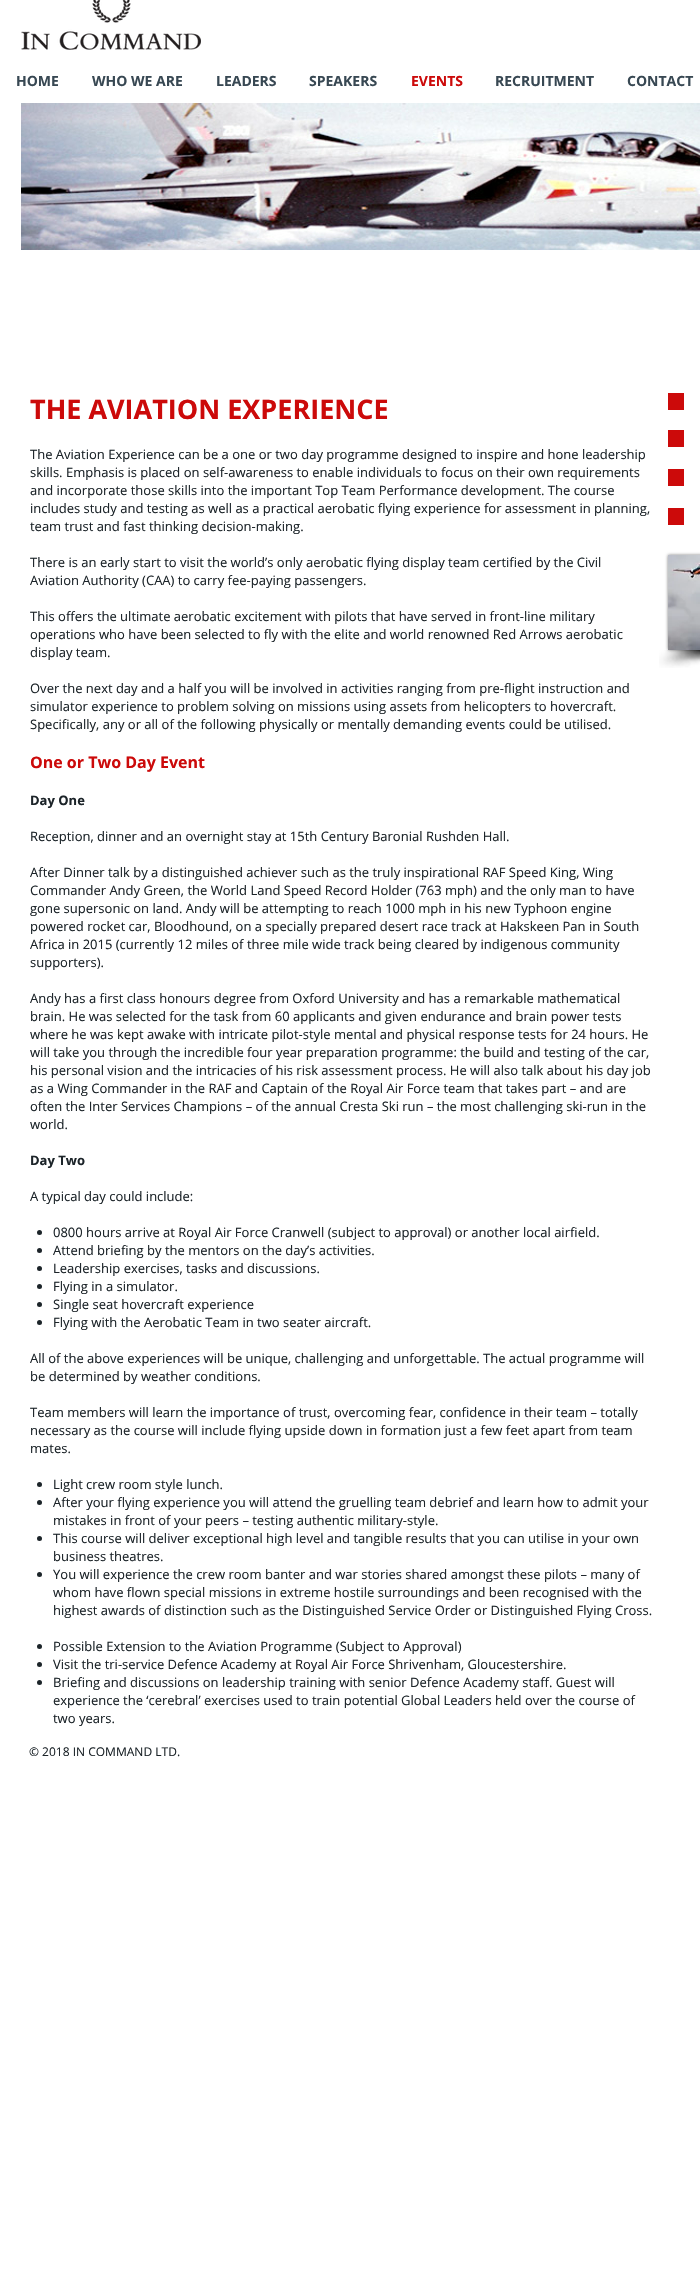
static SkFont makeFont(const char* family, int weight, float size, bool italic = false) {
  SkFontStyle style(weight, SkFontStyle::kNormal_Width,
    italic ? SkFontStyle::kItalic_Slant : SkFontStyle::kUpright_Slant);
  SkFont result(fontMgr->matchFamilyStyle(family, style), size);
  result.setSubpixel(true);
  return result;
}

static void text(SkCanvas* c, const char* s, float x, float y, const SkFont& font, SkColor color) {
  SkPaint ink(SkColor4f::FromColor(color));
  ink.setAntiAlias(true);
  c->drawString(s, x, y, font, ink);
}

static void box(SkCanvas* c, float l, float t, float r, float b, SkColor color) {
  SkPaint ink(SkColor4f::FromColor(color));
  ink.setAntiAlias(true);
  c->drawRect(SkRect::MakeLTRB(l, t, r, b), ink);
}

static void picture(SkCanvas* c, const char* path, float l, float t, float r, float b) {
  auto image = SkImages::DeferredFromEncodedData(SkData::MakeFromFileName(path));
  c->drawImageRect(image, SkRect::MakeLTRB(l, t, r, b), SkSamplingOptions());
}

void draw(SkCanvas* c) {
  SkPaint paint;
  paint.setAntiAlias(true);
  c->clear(0xffffffff);
  picture(c, "img_01.png", 21, 0, 201, 50);
  SkFont face1 = makeFont("Open Sans", 700, 14);
  text(c, "HOME", 16, 86, face1, 0xff384853);
  text(c, "WHO WE ARE", 92, 86, face1, 0xff384853);
  text(c, "LEADERS", 216, 86, face1, 0xff384853);
  text(c, "SPEAKERS", 309, 86, face1, 0xff384853);
  text(c, "EVENTS", 411, 86, face1, 0xffcc0a0a);
  text(c, "RECRUITMENT", 495, 86, face1, 0xff384853);
  text(c, "CONTACT", 627, 86, face1, 0xff384853);
  picture(c, "img_02.png", 21, 103, 700, 250);
  SkFont face2 = makeFont("Open Sans", 700, 27);
  text(c, "THE AVIATION EXPERIENCE", 30, 419, face2, 0xffcc0a0a);
  SkFont face3 = makeFont("Open Sans", 400, 13);
  text(c, "The Aviation Experience can be a one or two day programme designed to inspire and hone leadership", 30, 459, face3, 0xff1c2429);
  text(c, "skills. Emphasis is placed on self-awareness to enable individuals to focus on their own requirements", 30, 477, face3, 0xff1c2429);
  text(c, "and incorporate those skills into the important Top Team Performance development. The course", 30, 495, face3, 0xff1c2429);
  text(c, "includes study and testing as well as a practical aerobatic flying experience for assessment in planning,", 30, 513, face3, 0xff1c2429);
  text(c, "team trust and fast thinking decision-making.", 30, 531, face3, 0xff1c2429);
  text(c, "There is an early start to visit the world’s only aerobatic flying display team certified by the Civil", 30, 567, face3, 0xff1c2429);
  text(c, "Aviation Authority (CAA) to carry fee-paying passengers.", 30, 585, face3, 0xff1c2429);
  text(c, "This offers the ultimate aerobatic excitement with pilots that have served in front-line military", 30, 621, face3, 0xff1c2429);
  text(c, "operations who have been selected to fly with the elite and world renowned Red Arrows aerobatic", 30, 639, face3, 0xff1c2429);
  text(c, "display team.", 30, 657, face3, 0xff1c2429);
  text(c, "Over the next day and a half you will be involved in activities ranging from pre-flight instruction and", 30, 693, face3, 0xff1c2429);
  text(c, "simulator experience to problem solving on missions using assets from helicopters to hovercraft.", 30, 711, face3, 0xff1c2429);
  text(c, "Specifically, any or all of the following physically or mentally demanding events could be utilised.", 30, 729, face3, 0xff1c2429);
  SkFont face4 = makeFont("Open Sans", 700, 16);
  text(c, "One or Two Day Event", 30, 768, face4, 0xffcc0a0a);
  SkFont face5 = makeFont("Open Sans", 700, 13);
  text(c, "Day One", 30, 805, face5, 0xff1c2429);
  text(c, "Reception, dinner and an overnight stay at 15th Century Baronial Rushden Hall.", 30, 841, face3, 0xff1c2429);
  text(c, "After Dinner talk by a distinguished achiever such as the truly inspirational RAF Speed King, Wing", 30, 877, face3, 0xff1c2429);
  text(c, "Commander Andy Green, the World Land Speed Record Holder (763 mph) and the only man to have", 30, 895, face3, 0xff1c2429);
  text(c, "gone supersonic on land. Andy will be attempting to reach 1000 mph in his new Typhoon engine", 30, 913, face3, 0xff1c2429);
  text(c, "powered rocket car, Bloodhound, on a specially prepared desert race track at Hakskeen Pan in South", 30, 931, face3, 0xff1c2429);
  text(c, "Africa in 2015 (currently 12 miles of three mile wide track being cleared by indigenous community", 30, 949, face3, 0xff1c2429);
  text(c, "supporters).", 30, 967, face3, 0xff1c2429);
  text(c, "Andy has a first class honours degree from Oxford University and has a remarkable mathematical", 30, 1003, face3, 0xff1c2429);
  text(c, "brain. He was selected for the task from 60 applicants and given endurance and brain power tests", 30, 1021, face3, 0xff1c2429);
  text(c, "where he was kept awake with intricate pilot-style mental and physical response tests for 24 hours. He", 30, 1039, face3, 0xff1c2429);
  text(c, "will take you through the incredible four year preparation programme: the build and testing of the car,", 30, 1057, face3, 0xff1c2429);
  text(c, "his personal vision and the intricacies of his risk assessment process. He will also talk about his day job", 30, 1075, face3, 0xff1c2429);
  text(c, "as a Wing Commander in the RAF and Captain of the Royal Air Force team that takes part – and are", 30, 1093, face3, 0xff1c2429);
  text(c, "often the Inter Services Champions – of the annual Cresta Ski run – the most challenging ski-run in the", 30, 1111, face3, 0xff1c2429);
  text(c, "world.", 30, 1129, face3, 0xff1c2429);
  text(c, "Day Two", 30, 1165, face5, 0xff1c2429);
  text(c, "A typical day could include:", 30, 1201, face3, 0xff1c2429);
  paint.setColor(0xff1c2429);
  c->drawCircle(39.5f, 1232.5f, 2.5f, paint);
  text(c, "0800 hours arrive at Royal Air Force Cranwell (subject to approval) or another local airfield.", 53, 1237, face3, 0xff1c2429);
  c->drawCircle(39.5f, 1250.5f, 2.5f, paint);
  text(c, "Attend briefing by the mentors on the day’s activities.", 53, 1255, face3, 0xff1c2429);
  c->drawCircle(39.5f, 1268.5f, 2.5f, paint);
  text(c, "Leadership exercises, tasks and discussions.", 53, 1273, face3, 0xff1c2429);
  c->drawCircle(39.5f, 1286.5f, 2.5f, paint);
  text(c, "Flying in a simulator.", 53, 1291, face3, 0xff1c2429);
  c->drawCircle(39.5f, 1304.5f, 2.5f, paint);
  text(c, "Single seat hovercraft experience", 53, 1309, face3, 0xff1c2429);
  c->drawCircle(39.5f, 1322.5f, 2.5f, paint);
  text(c, "Flying with the Aerobatic Team in two seater aircraft.", 53, 1327, face3, 0xff1c2429);
  text(c, "All of the above experiences will be unique, challenging and unforgettable. The actual programme will", 30, 1363, face3, 0xff1c2429);
  text(c, "be determined by weather conditions.", 30, 1381, face3, 0xff1c2429);
  text(c, "Team members will learn the importance of trust, overcoming fear, confidence in their team – totally", 30, 1417, face3, 0xff1c2429);
  text(c, "necessary as the course will include flying upside down in formation just a few feet apart from team", 30, 1435, face3, 0xff1c2429);
  text(c, "mates.", 30, 1453, face3, 0xff1c2429);
  c->drawCircle(39.5f, 1484.5f, 2.5f, paint);
  text(c, "Light crew room style lunch.", 53, 1489, face3, 0xff1c2429);
  c->drawCircle(39.5f, 1502.5f, 2.5f, paint);
  text(c, "After your flying experience you will attend the gruelling team debrief and learn how to admit your", 53, 1507, face3, 0xff1c2429);
  text(c, "mistakes in front of your peers – testing authentic military-style.", 53, 1525, face3, 0xff1c2429);
  c->drawCircle(39.5f, 1538.5f, 2.5f, paint);
  text(c, "This course will deliver exceptional high level and tangible results that you can utilise in your own", 53, 1543, face3, 0xff1c2429);
  text(c, "business theatres.", 53, 1561, face3, 0xff1c2429);
  c->drawCircle(39.5f, 1574.5f, 2.5f, paint);
  text(c, "You will experience the crew room banter and war stories shared amongst these pilots – many of", 53, 1579, face3, 0xff1c2429);
  text(c, "whom have flown special missions in extreme hostile surroundings and been recognised with the", 53, 1597, face3, 0xff1c2429);
  text(c, "highest awards of distinction such as the Distinguished Service Order or Distinguished Flying Cross.", 53, 1615, face3, 0xff1c2429);
  c->drawCircle(39.5f, 1646.5f, 2.5f, paint);
  text(c, "Possible Extension to the Aviation Programme (Subject to Approval)", 53, 1651, face3, 0xff1c2429);
  c->drawCircle(39.5f, 1664.5f, 2.5f, paint);
  text(c, "Visit the tri-service Defence Academy at Royal Air Force Shrivenham, Gloucestershire.", 53, 1669, face3, 0xff1c2429);
  c->drawCircle(39.5f, 1682.5f, 2.5f, paint);
  text(c, "Briefing and discussions on leadership training with senior Defence Academy staff. Guest will", 53, 1687, face3, 0xff1c2429);
  text(c, "experience the ‘cerebral’ exercises used to train potential Global Leaders held over the course of", 53, 1705, face3, 0xff1c2429);
  text(c, "two years.", 53, 1723, face3, 0xff1c2429);
  box(c, 668, 393, 684, 410, 0xffcc0a0a);
  box(c, 668, 430, 684, 447, 0xffcc0a0a);
  box(c, 668, 469, 684, 486, 0xffcc0a0a);
  box(c, 668, 508, 684, 525, 0xffcc0a0a);
  paint.setColor(0x80000000);
  paint.setMaskFilter(SkMaskFilter::MakeBlur(kNormal_SkBlurStyle, 1.5f));
  c->drawRect(SkRect::MakeLTRB(668, 555, 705, 650), paint);
  paint.setMaskFilter(nullptr);
  picture(c, "img_03.png", 668, 555, 700, 650);
  picture(c, "img_04.png", 659, 650, 700, 668);
  SkFont face6 = makeFont("Open Sans", 400, 12);
  text(c, "© 2018 IN COMMAND LTD.", 29, 1756, face6, 0xff1c2429);
}
